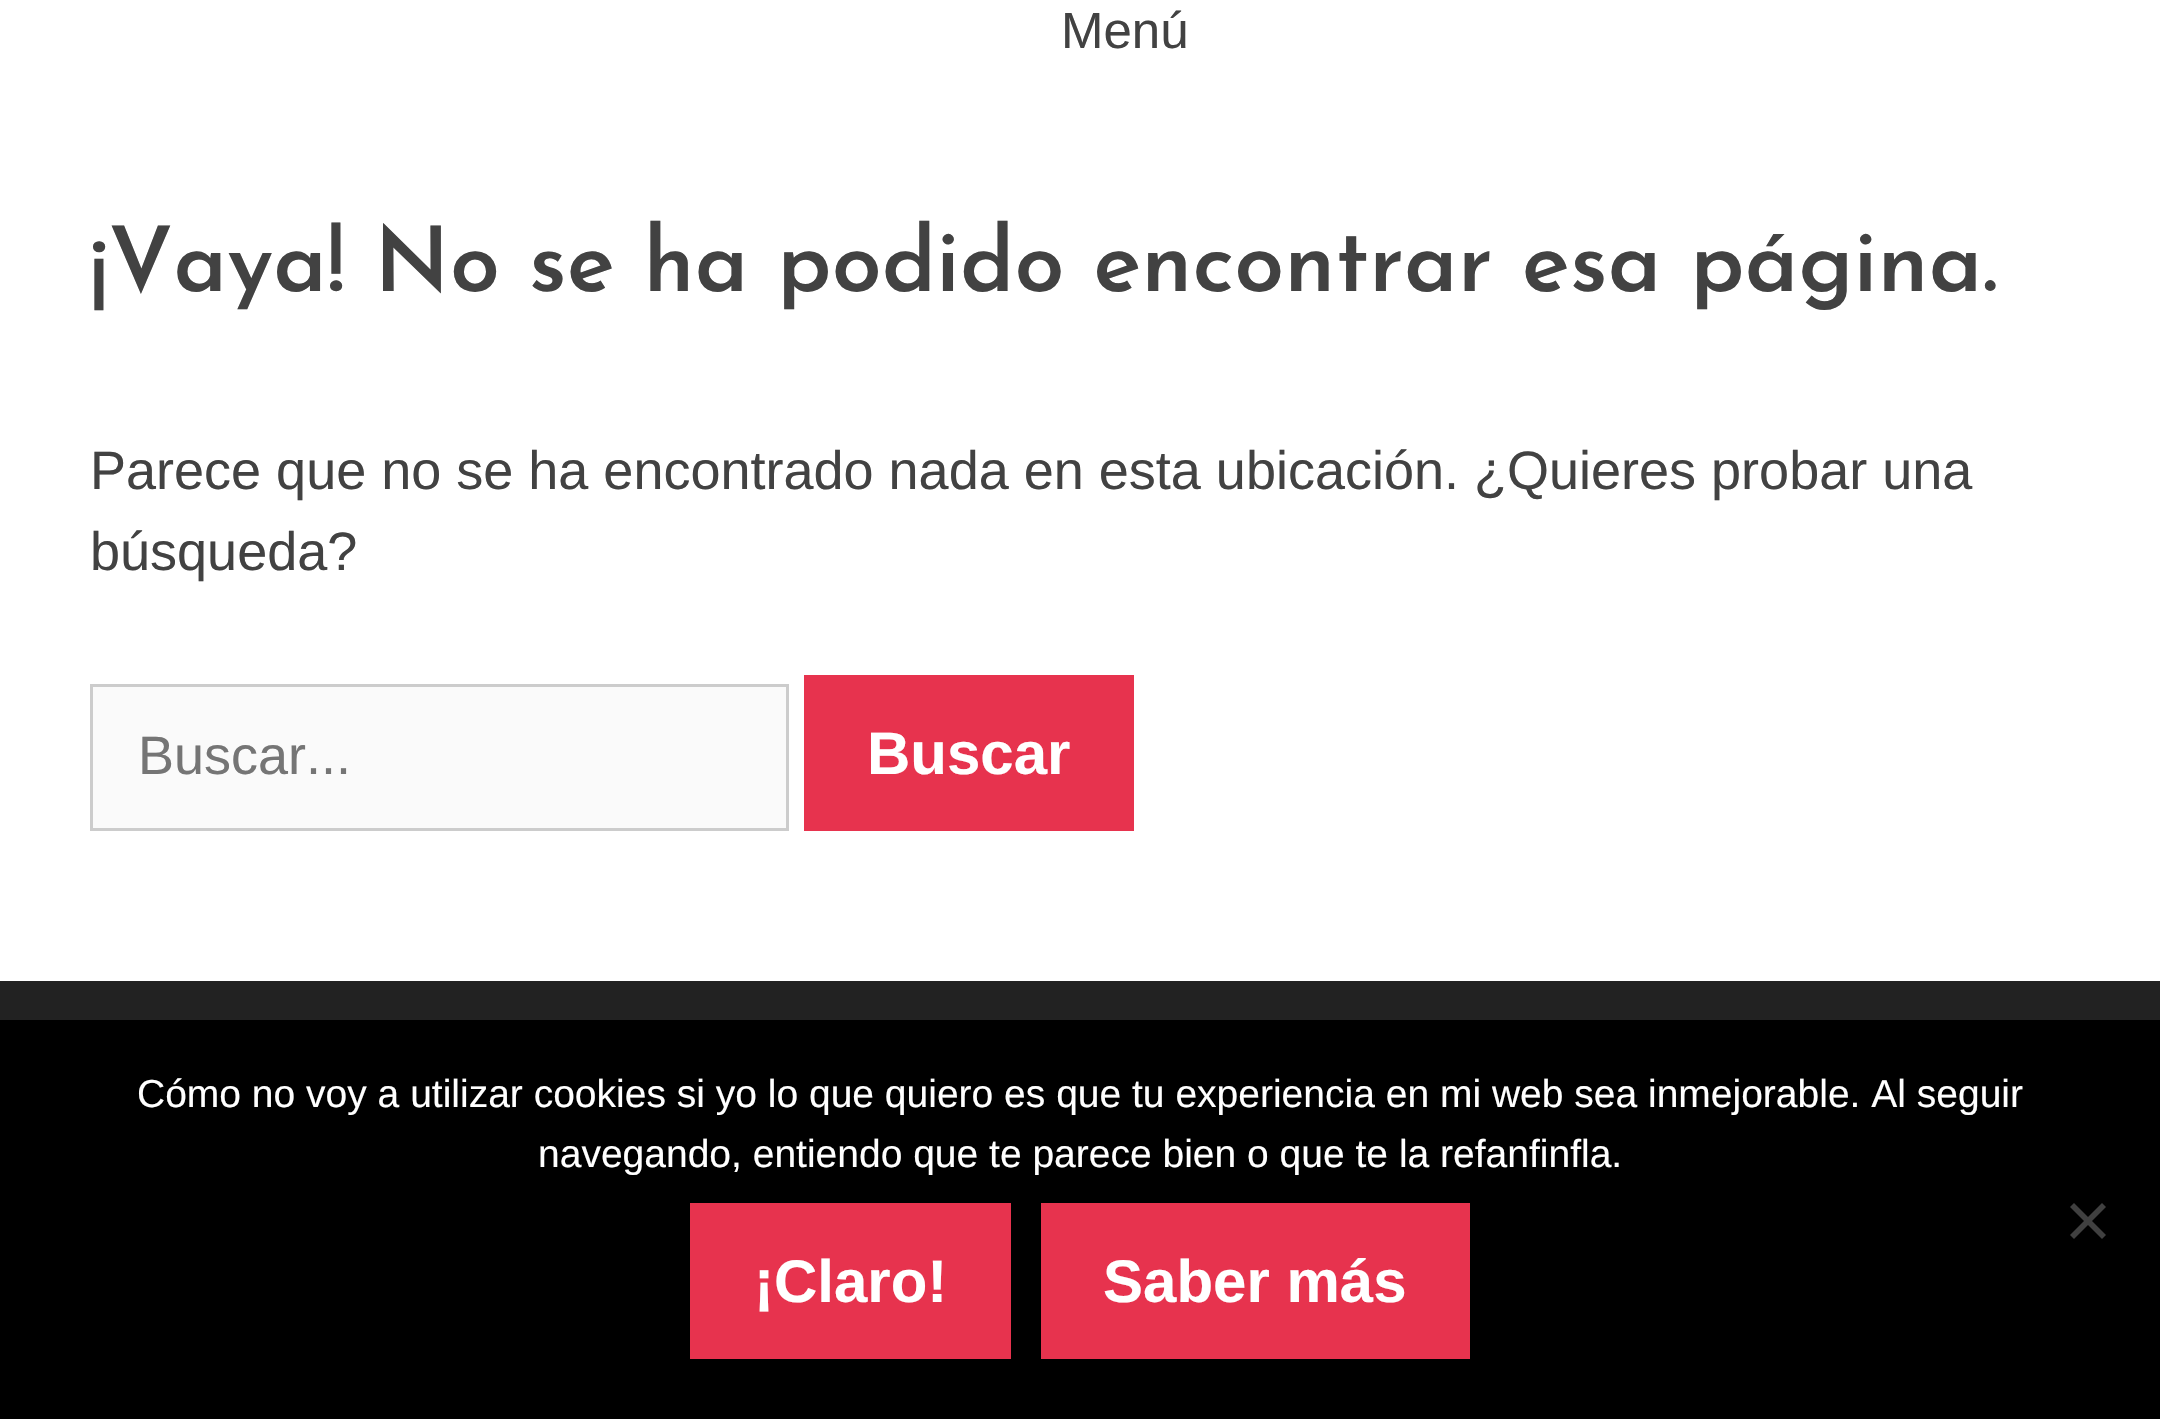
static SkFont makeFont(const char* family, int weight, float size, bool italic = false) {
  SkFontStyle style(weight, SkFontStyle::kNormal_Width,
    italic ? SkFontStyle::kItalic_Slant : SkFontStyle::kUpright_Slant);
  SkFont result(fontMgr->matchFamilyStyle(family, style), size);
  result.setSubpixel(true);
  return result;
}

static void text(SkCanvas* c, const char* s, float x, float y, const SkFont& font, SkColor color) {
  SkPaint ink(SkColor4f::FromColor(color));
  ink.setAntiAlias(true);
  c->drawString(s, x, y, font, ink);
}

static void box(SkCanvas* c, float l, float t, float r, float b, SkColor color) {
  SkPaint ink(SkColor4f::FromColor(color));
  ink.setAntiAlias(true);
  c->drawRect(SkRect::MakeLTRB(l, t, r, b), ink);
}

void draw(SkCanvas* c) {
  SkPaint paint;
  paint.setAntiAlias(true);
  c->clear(0xffffffff);
  SkFont face1 = makeFont("Liberation Sans", 400, 51);
  text(c, "Menú", 1061, 48, face1, 0xff424242);
  SkFont face2 = makeFont("Josefin Sans", 600, 90);
  text(c, "¡Vaya! No se ha podido encontrar esa página.", 90, 291, face2, 0xff424242);
  SkFont face3 = makeFont("Liberation Sans", 400, 54);
  text(c, "Parece que no se ha encontrado nada en esta ubicación. ¿Quieres probar una", 90, 489, face3, 0xff424242);
  text(c, "búsqueda?", 90, 570, face3, 0xff424242);
  paint.setColor(0xfffafafa);
  c->drawRect(SkRect::MakeLTRB(91.5f, 685.5f, 787.5f, 829.5f), paint);
  paint.setStyle(SkPaint::kStroke_Style);
  paint.setStrokeWidth(3);
  paint.setColor(0xffcccccc);
  c->drawRect(SkRect::MakeLTRB(91.5f, 685.5f, 787.5f, 829.5f), paint);
  text(c, "Buscar...", 138, 774, face3, 0xff757575);
  box(c, 804, 675, 1134, 831, 0xffe7334e);
  SkFont face4 = makeFont("Liberation Sans", 700, 60);
  text(c, "Buscar", 867, 774, face4, 0xffffffff);
  box(c, 0, 981, 2160, 1020, 0xff222222);
  box(c, 0, 1020, 2160, 1419, 0xff000000);
  SkFont face5 = makeFont("Liberation Sans", 400, 39);
  text(c, "Cómo no voy a utilizar cookies si yo lo que quiero es que tu experiencia en mi web sea inmejorable. Al seguir", 137, 1107, face5, 0xffffffff);
  text(c, "navegando, entiendo que te parece bien o que te la refanfinfla.", 538, 1167, face5, 0xffffffff);
  paint.setStyle(SkPaint::kFill_Style);
  paint.setColor(0xff404040);
  c->drawPath(SkPathBuilder().moveTo(2102, 1203).lineTo(2106, 1207).lineTo(2074, 1239).lineTo(2070, 1235).close().detach(), paint);
  c->drawPath(SkPathBuilder().moveTo(2070, 1207).lineTo(2074, 1203).lineTo(2106, 1235).lineTo(2102, 1239).close().detach(), paint);
  box(c, 690, 1203, 1011, 1359, 0xffe7334e);
  text(c, "¡Claro!", 754, 1302, face4, 0xffffffff);
  box(c, 1041, 1203, 1470, 1359, 0xffe7334e);
  text(c, "Saber más", 1103, 1302, face4, 0xffffffff);
}
